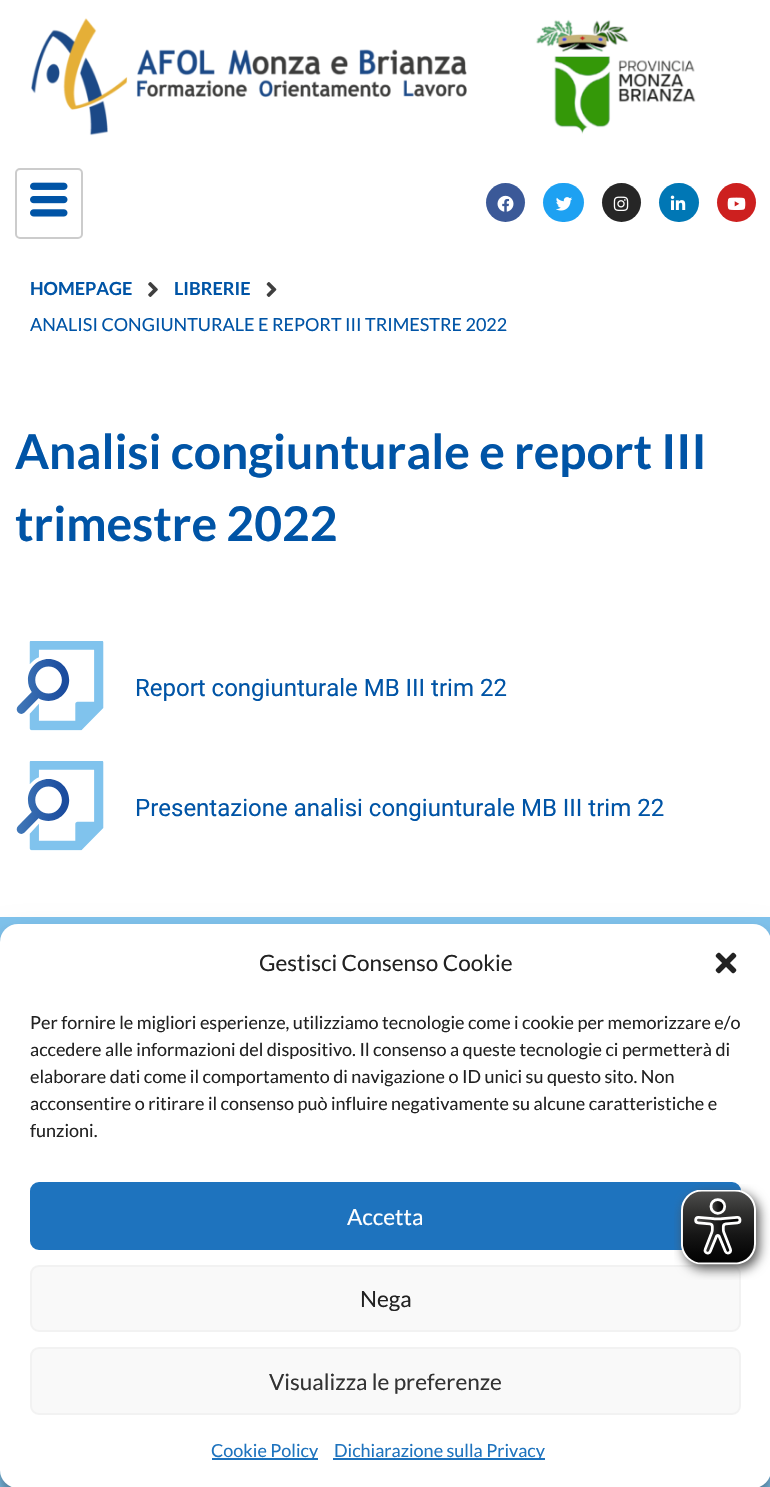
static SkFont makeFont(const char* family, int weight, float size, bool italic = false) {
  SkFontStyle style(weight, SkFontStyle::kNormal_Width,
    italic ? SkFontStyle::kItalic_Slant : SkFontStyle::kUpright_Slant);
  SkFont result(fontMgr->matchFamilyStyle(family, style), size);
  result.setSubpixel(true);
  return result;
}

static void text(SkCanvas* c, const char* s, float x, float y, const SkFont& font, SkColor color) {
  SkPaint ink(SkColor4f::FromColor(color));
  ink.setAntiAlias(true);
  c->drawString(s, x, y, font, ink);
}

static void box(SkCanvas* c, float l, float t, float r, float b, SkColor color) {
  SkPaint ink(SkColor4f::FromColor(color));
  ink.setAntiAlias(true);
  c->drawRect(SkRect::MakeLTRB(l, t, r, b), ink);
}

static void roundBox(SkCanvas* c, float l, float t, float r, float b, float radius, SkColor color) {
  SkPaint ink(SkColor4f::FromColor(color));
  ink.setAntiAlias(true);
  c->drawRoundRect(SkRect::MakeLTRB(l, t, r, b), radius, radius, ink);
}

static void picture(SkCanvas* c, const char* path, float l, float t, float r, float b) {
  auto image = SkImages::DeferredFromEncodedData(SkData::MakeFromFileName(path));
  c->drawImageRect(image, SkRect::MakeLTRB(l, t, r, b), SkSamplingOptions());
}

void draw(SkCanvas* c) {
  SkPaint paint;
  paint.setAntiAlias(true);
  c->clear(0xffffffff);
  picture(c, "img_01.png", 31, 18, 696, 136);
  paint.setStyle(SkPaint::kStroke_Style);
  paint.setStrokeWidth(2);
  paint.setColor(0xffcccccc);
  c->drawRoundRect(SkRect::MakeLTRB(16, 169, 82, 238), 4, 4, paint);
  picture(c, "img_02.png", 30, 182, 68, 217);
  paint.setStyle(SkPaint::kFill_Style);
  paint.setColor(0xff3b5998);
  c->drawCircle(505.5f, 202.5f, 19.5f, paint);
  picture(c, "img_03.png", 497, 195, 514, 212);
  roundBox(c, 543, 183, 584, 222, 19.5f, 0xff1da1f2);
  picture(c, "img_04.png", 556, 197, 573, 211);
  paint.setColor(0xff262626);
  c->drawCircle(621.5f, 202.5f, 19.5f, paint);
  picture(c, "img_05.png", 613, 196, 629, 211);
  roundBox(c, 659, 183, 699, 222, 19.5f, 0xff0077b5);
  picture(c, "img_06.png", 670, 195, 686, 210);
  paint.setColor(0xffcd201f);
  c->drawCircle(736.5f, 202.5f, 19.5f, paint);
  picture(c, "img_07.png", 727, 197, 746, 210);
  SkFont face1 = makeFont("Lato", 700, 18);
  text(c, "HOMEPAGE", 30, 295, face1, 0xff0054a6);
  picture(c, "img_08.png", 148, 282, 158, 297);
  text(c, "LIBRERIE", 174, 295, face1, 0xff0054a6);
  picture(c, "img_09.png", 266, 282, 277, 297);
  SkFont face2 = makeFont("Lato", 400, 18);
  text(c, "ANALISI CONGIUNTURALE E REPORT III TRIMESTRE 2022", 30, 331, face2, 0xff0054a6);
  SkFont face3 = makeFont("Lato", 700, 48);
  text(c, "Analisi congiunturale e report III", 15, 469, face3, 0xff0054a6);
  text(c, "trimestre 2022", 15, 541, face3, 0xff0054a6);
  picture(c, "img_10.png", 16, 641, 104, 731);
  SkFont face4 = makeFont("Roboto", 400, 24);
  text(c, "Report congiunturale MB III trim 22", 135, 696, face4, 0xff0054a6);
  picture(c, "img_11.png", 16, 761, 104, 851);
  text(c, "Presentazione analisi congiunturale MB III trim 22", 135, 816, face4, 0xff0054a6);
  box(c, 0, 917, 770, 1487, 0xff80c3ed);
  paint.setColor(0x3b000000);
  paint.setMaskFilter(SkMaskFilter::MakeBlur(kNormal_SkBlurStyle, 4.5f));
  c->drawRoundRect(SkRect::MakeLTRB(0, 933, 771, 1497), 18, 18, paint);
  paint.setMaskFilter(nullptr);
  paint.setColor(0x30000000);
  paint.setMaskFilter(SkMaskFilter::MakeBlur(kNormal_SkBlurStyle, 15));
  c->drawRoundRect(SkRect::MakeLTRB(0, 939, 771, 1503), 18, 18, paint);
  paint.setMaskFilter(nullptr);
  roundBox(c, 0, 924, 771, 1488, 18, 0xffffffff);
  SkFont face5 = makeFont("Lato", 400, 22.5f);
  text(c, "Gestisci Consenso Cookie", 259, 971, face5, 0xff222222);
  picture(c, "img_12.png", 715, 952, 737, 974);
  text(c, "Per fornire le migliori esperienze, utilizziamo tecnologie come i cookie per memorizzare e/o", 30, 1029, face2, 0xff222222);
  text(c, "accedere alle informazioni del dispositivo. Il consenso a queste tecnologie ci permetterà di", 30, 1056, face2, 0xff222222);
  text(c, "elaborare dati come il comportamento di navigazione o ID unici su questo sito. Non", 30, 1083, face2, 0xff222222);
  text(c, "acconsentire o ritirare il consenso può influire negativamente su alcune caratteristiche e", 30, 1110, face2, 0xff222222);
  text(c, "funzioni.", 30, 1137, face2, 0xff222222);
  paint.setColor(0xff1e73be);
  c->drawRoundRect(SkRect::MakeLTRB(31, 1183, 740, 1249), 8, 8, paint);
  paint.setStyle(SkPaint::kStroke_Style);
  c->drawRoundRect(SkRect::MakeLTRB(31, 1183, 740, 1249), 8, 8, paint);
  text(c, "Accetta", 347, 1225, face5, 0xffffffff);
  paint.setStyle(SkPaint::kFill_Style);
  paint.setColor(0xfff9f9f9);
  c->drawRoundRect(SkRect::MakeLTRB(31, 1266, 740, 1331), 8, 8, paint);
  paint.setStyle(SkPaint::kStroke_Style);
  paint.setColor(0xfff2f2f2);
  c->drawRoundRect(SkRect::MakeLTRB(31, 1266, 740, 1331), 8, 8, paint);
  text(c, "Nega", 360, 1307, face5, 0xff222222);
  paint.setStyle(SkPaint::kFill_Style);
  paint.setColor(0xfff9f9f9);
  c->drawRoundRect(SkRect::MakeLTRB(31, 1348, 740, 1414), 8, 8, paint);
  paint.setStyle(SkPaint::kStroke_Style);
  paint.setColor(0xfff2f2f2);
  c->drawRoundRect(SkRect::MakeLTRB(31, 1348, 740, 1414), 8, 8, paint);
  text(c, "Visualizza le preferenze", 269, 1390, face5, 0xff333333);
  box(c, 212, 1458, 318, 1460, 0xff1e73be);
  text(c, "Cookie Policy", 211, 1457, face2, 0xff1e73be);
  box(c, 333, 1458, 545, 1460, 0xff1e73be);
  text(c, "Dichiarazione sulla Privacy", 334, 1457, face2, 0xff1e73be);
  picture(c, "img_13.png", 674, 1184, 770, 1280);
}
